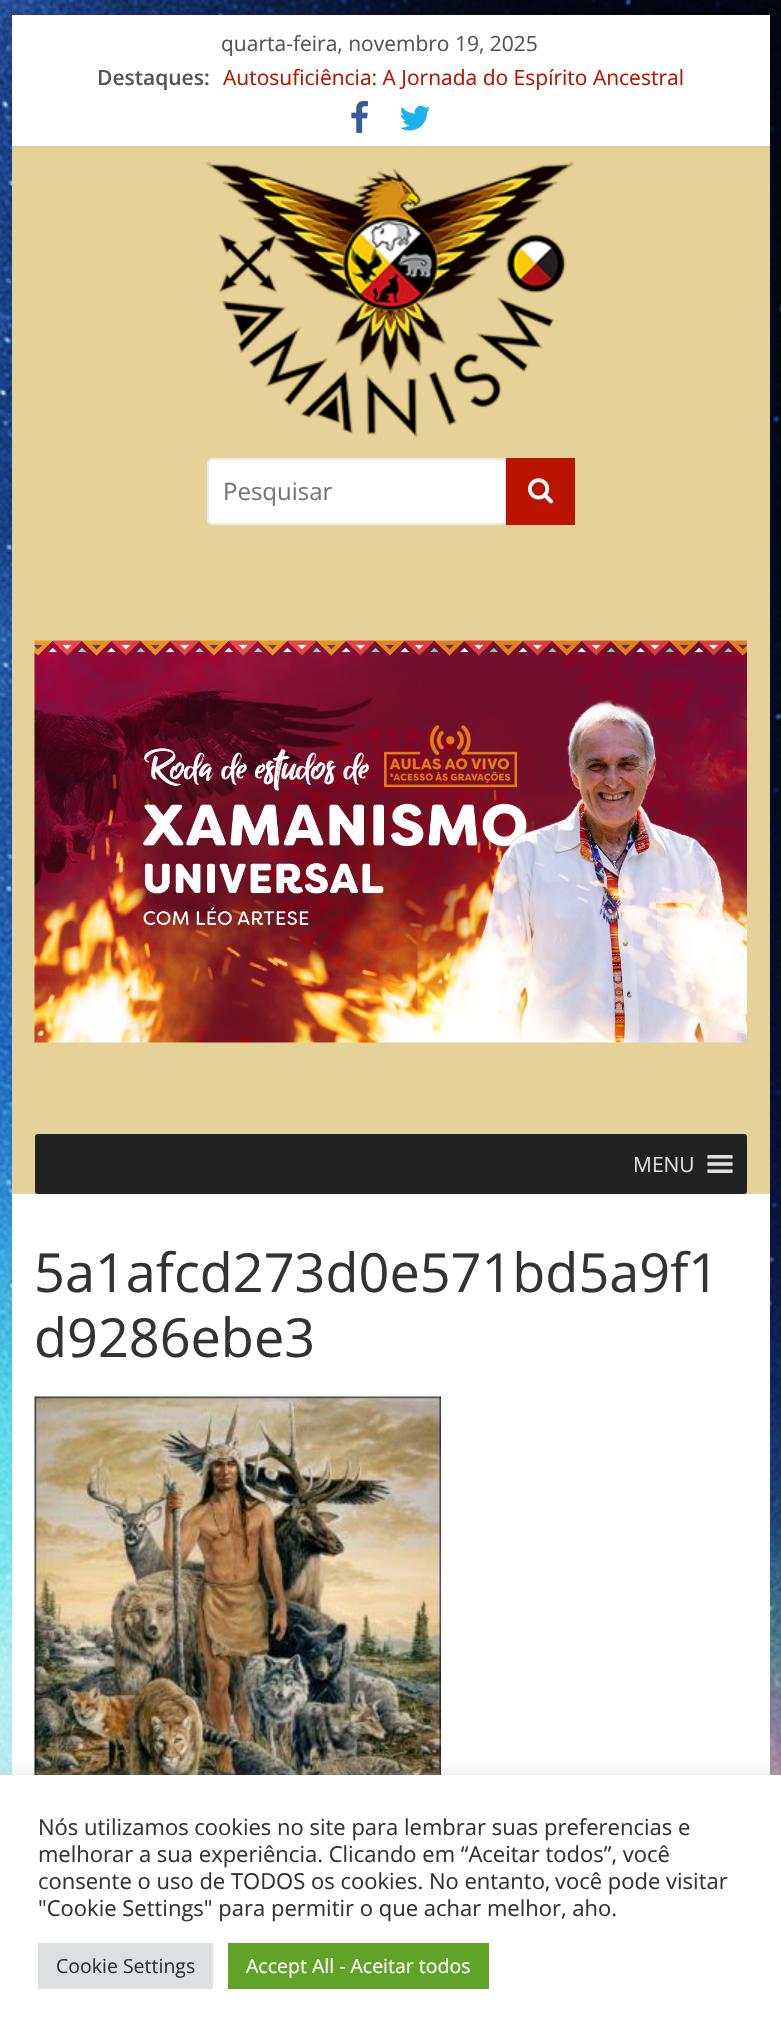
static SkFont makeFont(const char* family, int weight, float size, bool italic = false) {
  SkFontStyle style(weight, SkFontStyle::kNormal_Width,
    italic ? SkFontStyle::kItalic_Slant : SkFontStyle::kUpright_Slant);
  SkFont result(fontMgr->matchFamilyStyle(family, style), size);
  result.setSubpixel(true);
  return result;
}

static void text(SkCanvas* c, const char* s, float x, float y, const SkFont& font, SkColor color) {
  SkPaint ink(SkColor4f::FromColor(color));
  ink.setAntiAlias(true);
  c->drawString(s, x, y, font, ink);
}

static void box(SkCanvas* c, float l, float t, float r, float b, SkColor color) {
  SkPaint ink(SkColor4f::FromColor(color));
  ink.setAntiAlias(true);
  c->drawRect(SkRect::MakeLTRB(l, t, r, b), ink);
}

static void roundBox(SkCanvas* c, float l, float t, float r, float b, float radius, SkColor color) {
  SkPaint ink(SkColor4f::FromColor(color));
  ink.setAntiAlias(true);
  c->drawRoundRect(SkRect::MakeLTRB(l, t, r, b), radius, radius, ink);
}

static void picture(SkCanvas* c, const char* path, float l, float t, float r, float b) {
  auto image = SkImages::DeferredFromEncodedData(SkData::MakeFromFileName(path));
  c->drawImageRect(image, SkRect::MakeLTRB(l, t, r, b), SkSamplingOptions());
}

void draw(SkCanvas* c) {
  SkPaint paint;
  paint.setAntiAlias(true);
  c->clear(0xffffffff);
  picture(c, "img_01.png", 0, 0, 781, 1775);
  box(c, 12, 146, 770, 1194, 0xffe5d299);
  paint.setColor(0x1a000000);
  paint.setMaskFilter(SkMaskFilter::MakeBlur(kNormal_SkBlurStyle, 1.5f));
  c->drawRect(SkRect::MakeLTRB(12, 15, 770, 146), paint);
  paint.setMaskFilter(nullptr);
  box(c, 12, 15, 770, 146, 0xffffffff);
  SkFont face1 = makeFont("Open Sans", 400, 21);
  text(c, "quarta-feira, novembro 19, 2025", 221, 51, face1, 0xff555555);
  SkFont face2 = makeFont("Open Sans", 600, 21);
  text(c, "Destaques:", 97, 85, face2, 0xff555555);
  text(c, "Autosuficiência: A Jornada do Espírito Ancestral", 223, 85, face1, 0xffba1401);
  picture(c, "img_02.png", 351, 100, 368, 133);
  picture(c, "img_03.png", 400, 105, 430, 131);
  picture(c, "img_04.png", 205, 161, 575, 439);
  paint.setColor(0xffffffff);
  c->drawRoundRect(SkRect::MakeLTRB(208, 459, 506, 524), 4, 4, paint);
  paint.setStyle(SkPaint::kStroke_Style);
  paint.setStrokeWidth(2);
  paint.setColor(0xffeaeaea);
  c->drawRoundRect(SkRect::MakeLTRB(208, 459, 506, 524), 4, 4, paint);
  SkFont face3 = makeFont("Open Sans", 400, 24);
  text(c, "Pesquisar", 223, 500, face3, 0xff757575);
  box(c, 506, 458, 575, 525, 0xffba1401);
  picture(c, "img_05.png", 528, 478, 554, 504);
  picture(c, "img_06.png", 34, 640, 747, 1043);
  roundBox(c, 35, 1134, 747, 1194, 3, 0xff222222);
  text(c, "MENU", 633, 1172, face1, 0xffdddddd);
  picture(c, "img_07.png", 707, 1155, 733, 1173);
  box(c, 12, 1194, 770, 1775, 0xffffffff);
  SkFont face4 = makeFont("Open Sans", 400, 54);
  text(c, "5a1afcd273d0e571bd5a9f1", 34, 1292, face4, 0xff333333);
  text(c, "d9286ebe3", 34, 1357, face4, 0xff333333);
  picture(c, "img_08.png", 34, 1396, 441, 1775);
  paint.setStyle(SkPaint::kFill_Style);
  paint.setColor(0x4dacabab);
  paint.setMaskFilter(SkMaskFilter::MakeBlur(kNormal_SkBlurStyle, 7.5f));
  c->drawRect(SkRect::MakeLTRB(0, 1773, 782, 2033), paint);
  paint.setMaskFilter(nullptr);
  box(c, 0, 1775, 781, 2034, 0xffffffff);
  SkFont face5 = makeFont("Open Sans", 400, 22);
  text(c, "Nós utilizamos cookies no site para lembrar suas preferencias e", 38, 1835, face5, 0xff333333);
  text(c, "melhorar a sua experiência. Clicando em “Aceitar todos”, você", 38, 1862, face5, 0xff333333);
  text(c, "consente o uso de TODOS os cookies. No entanto,", 38, 1889, face5, 0xff333333);
  text(c, "você pode visitar", 555, 1889, face5, 0xff333333);
  text(c, "\"Cookie Settings\" para permitir o que achar melhor, aho.", 38, 1916, face5, 0xff333333);
  box(c, 38, 1943, 213, 1989, 0xffdedfe0);
  SkFont face6 = makeFont("Open Sans", 400, 19.5f);
  text(c, "Cookie Settings", 56, 1973, face6, 0xff333333);
  box(c, 228, 1943, 489, 1989, 0xff61a229);
  text(c, "Accept All - Aceitar todos", 246, 1973, face6, 0xffffffff);
}
